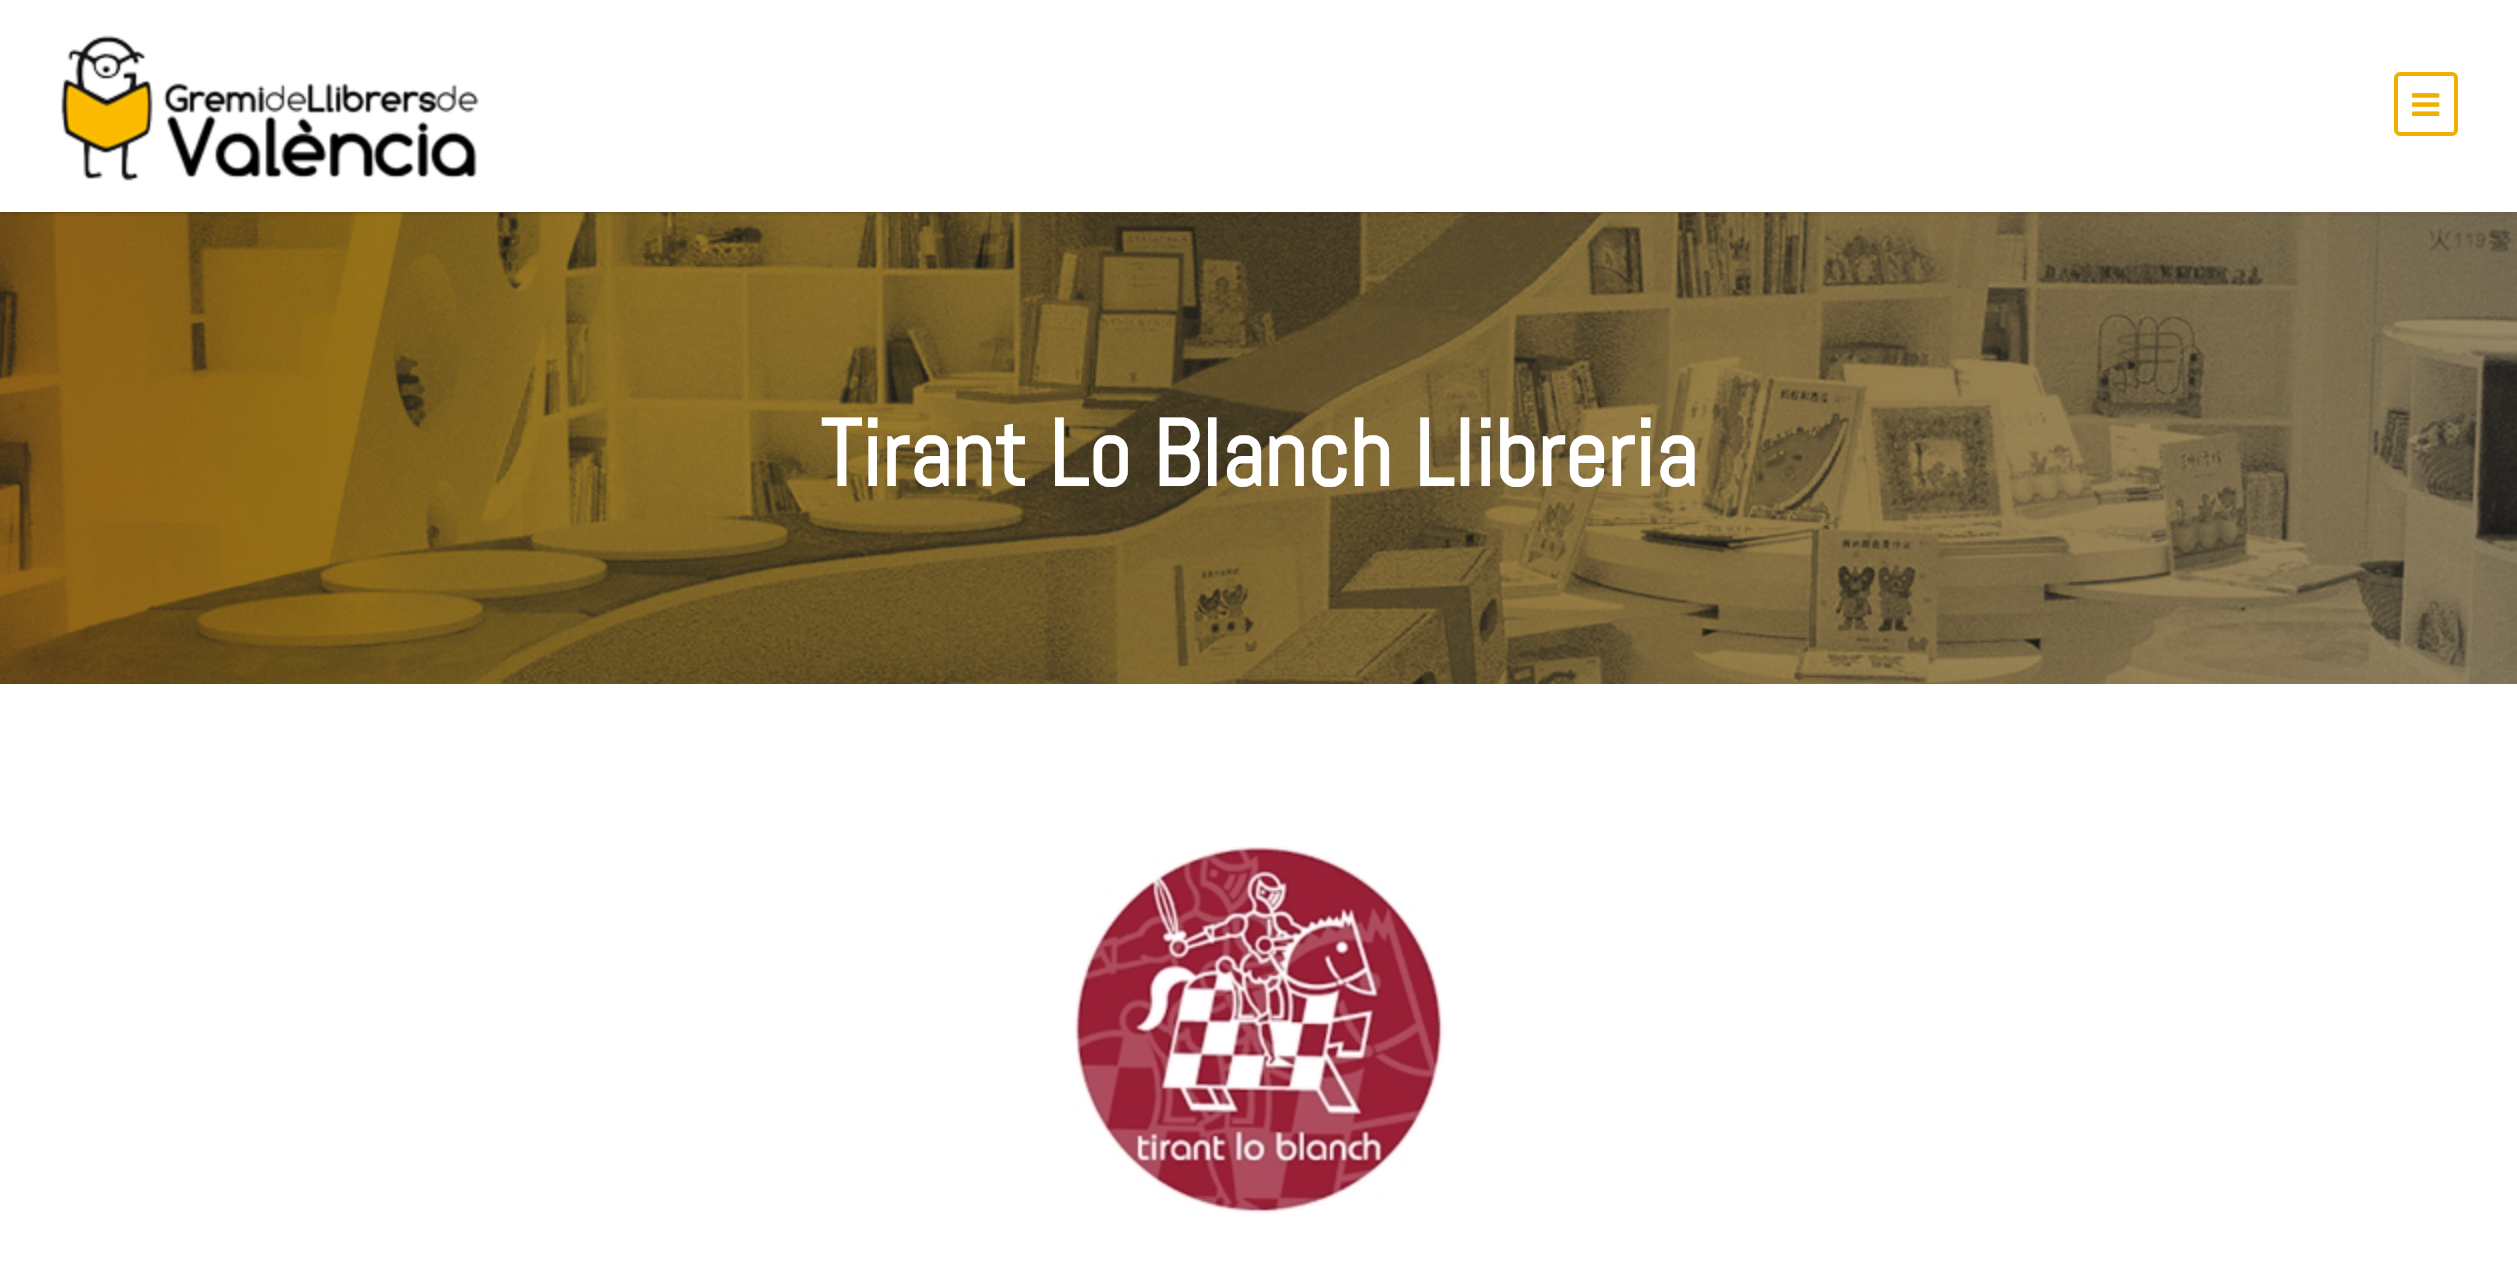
static SkFont makeFont(const char* family, int weight, float size, bool italic = false) {
  SkFontStyle style(weight, SkFontStyle::kNormal_Width,
    italic ? SkFontStyle::kItalic_Slant : SkFontStyle::kUpright_Slant);
  SkFont result(fontMgr->matchFamilyStyle(family, style), size);
  result.setSubpixel(true);
  return result;
}

static void text(SkCanvas* c, const char* s, float x, float y, const SkFont& font, SkColor color) {
  SkPaint ink(SkColor4f::FromColor(color));
  ink.setAntiAlias(true);
  c->drawString(s, x, y, font, ink);
}

static void picture(SkCanvas* c, const char* path, float l, float t, float r, float b) {
  auto image = SkImages::DeferredFromEncodedData(SkData::MakeFromFileName(path));
  c->drawImageRect(image, SkRect::MakeLTRB(l, t, r, b), SkSamplingOptions());
}

void draw(SkCanvas* c) {
  SkPaint paint;
  paint.setAntiAlias(true);
  c->clear(0xffffffff);
  picture(c, "img_03.png", 0, 212, 2517, 684);
  c->save();
  c->clipRect(SkRect::MakeLTRB(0, 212, 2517, 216));
  paint.setColor(0x1a000000);
  paint.setMaskFilter(SkMaskFilter::MakeBlur(kNormal_SkBlurStyle, 2));
  c->drawRect(SkRect::MakeLTRB(0, 2, 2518, 214), paint);
  paint.setMaskFilter(nullptr);
  c->restore();
  picture(c, "img_01.png", 61, 35, 479, 181);
  paint.setStyle(SkPaint::kStroke_Style);
  paint.setStrokeWidth(4);
  paint.setColor(0xffefb100);
  c->drawRoundRect(SkRect::MakeLTRB(2396, 74, 2456, 134), 4, 4, paint);
  picture(c, "img_02.png", 2412, 93, 2440, 116);
  SkFont face1 = makeFont("Abel", 700, 94);
  text(c, "Tirant Lo Blanch Llibreria", 820, 486, face1, 0xffffffff);
  picture(c, "img_04.png", 1075, 846, 1443, 1214);
}
